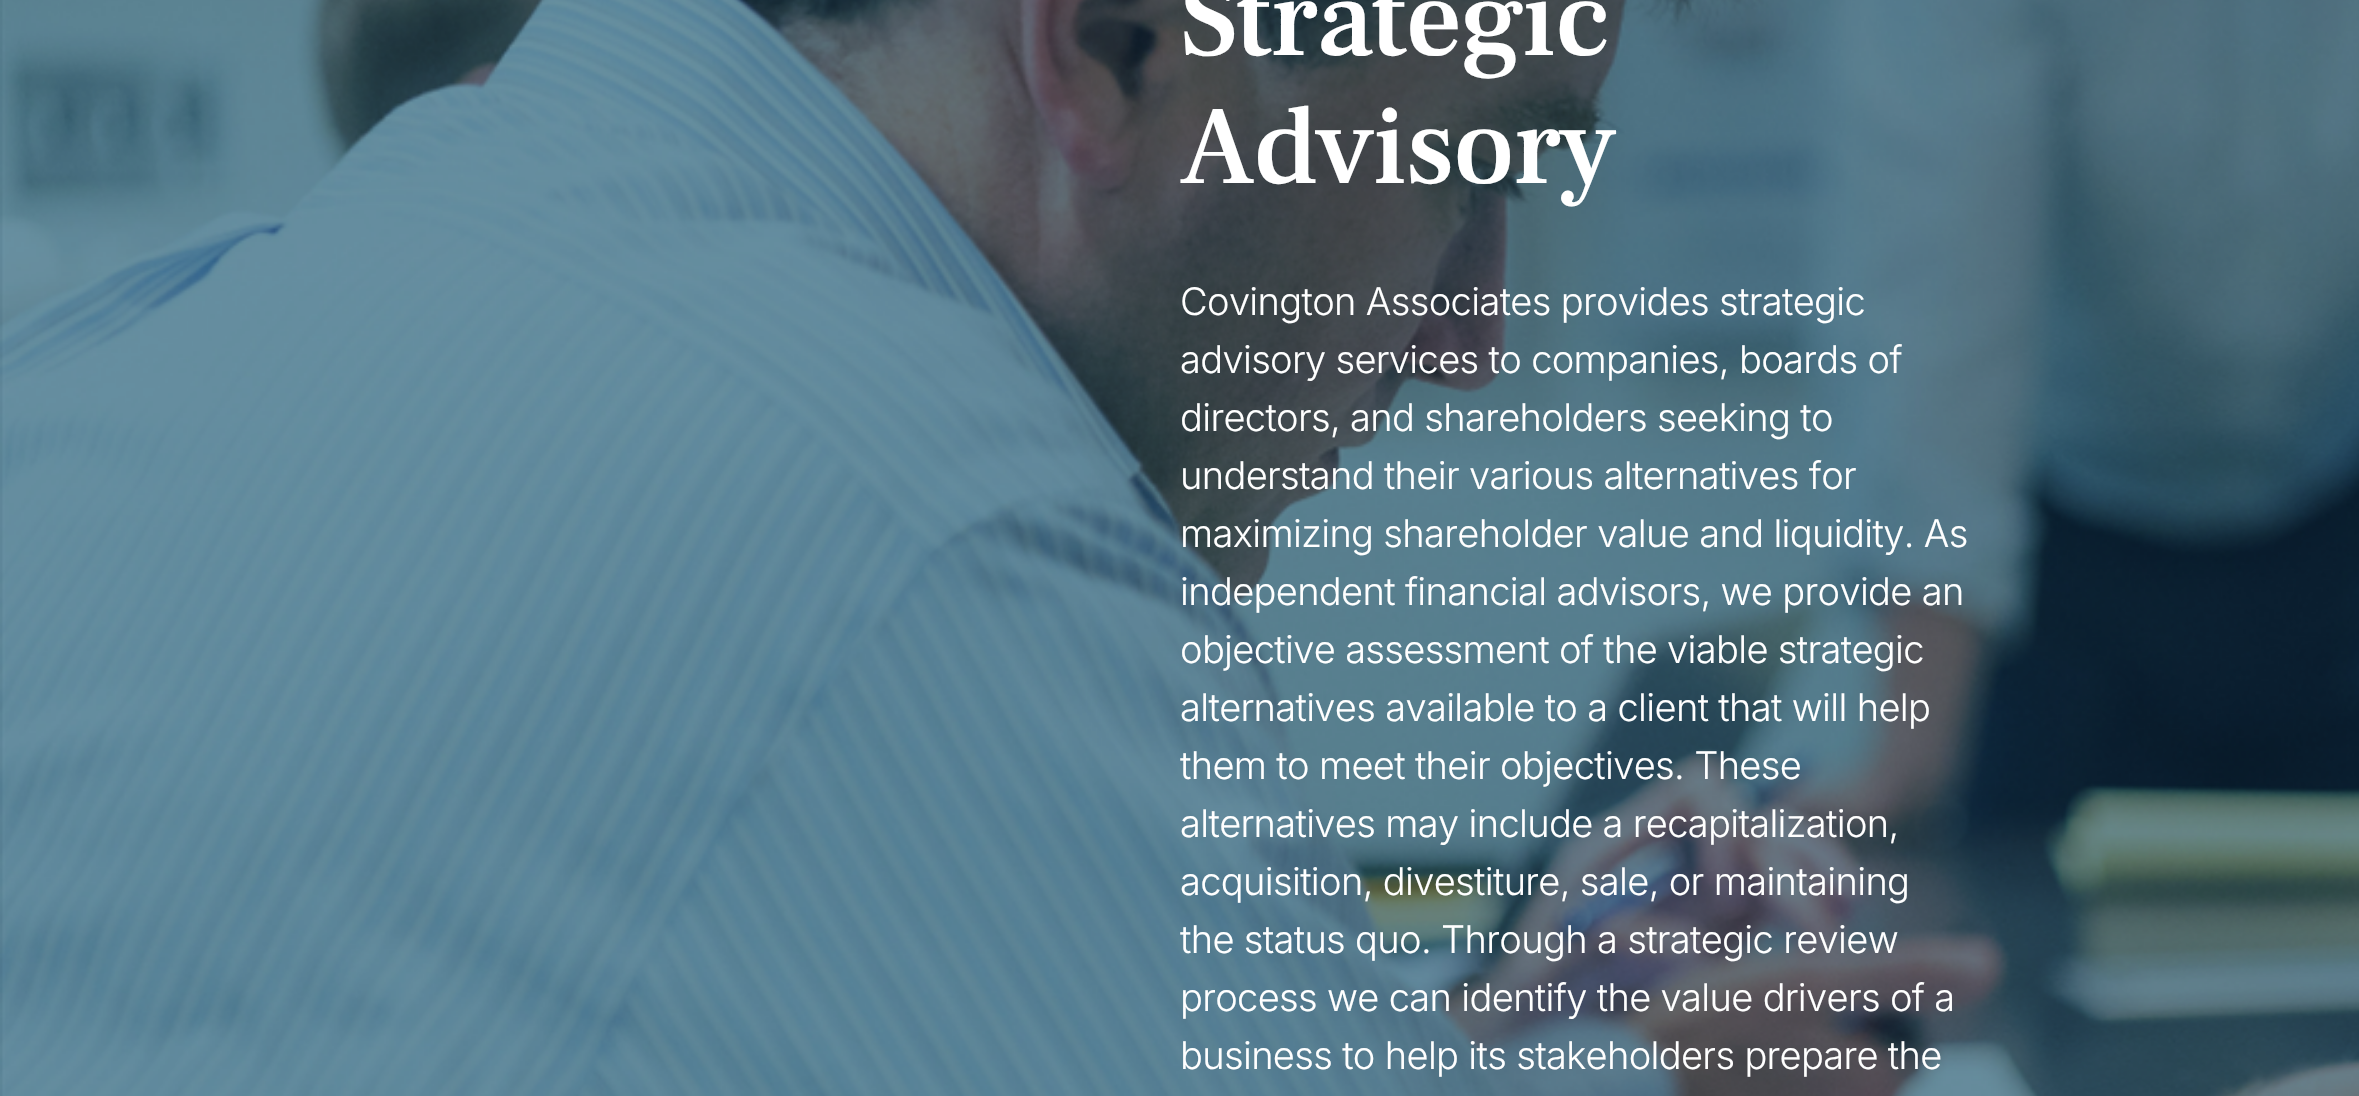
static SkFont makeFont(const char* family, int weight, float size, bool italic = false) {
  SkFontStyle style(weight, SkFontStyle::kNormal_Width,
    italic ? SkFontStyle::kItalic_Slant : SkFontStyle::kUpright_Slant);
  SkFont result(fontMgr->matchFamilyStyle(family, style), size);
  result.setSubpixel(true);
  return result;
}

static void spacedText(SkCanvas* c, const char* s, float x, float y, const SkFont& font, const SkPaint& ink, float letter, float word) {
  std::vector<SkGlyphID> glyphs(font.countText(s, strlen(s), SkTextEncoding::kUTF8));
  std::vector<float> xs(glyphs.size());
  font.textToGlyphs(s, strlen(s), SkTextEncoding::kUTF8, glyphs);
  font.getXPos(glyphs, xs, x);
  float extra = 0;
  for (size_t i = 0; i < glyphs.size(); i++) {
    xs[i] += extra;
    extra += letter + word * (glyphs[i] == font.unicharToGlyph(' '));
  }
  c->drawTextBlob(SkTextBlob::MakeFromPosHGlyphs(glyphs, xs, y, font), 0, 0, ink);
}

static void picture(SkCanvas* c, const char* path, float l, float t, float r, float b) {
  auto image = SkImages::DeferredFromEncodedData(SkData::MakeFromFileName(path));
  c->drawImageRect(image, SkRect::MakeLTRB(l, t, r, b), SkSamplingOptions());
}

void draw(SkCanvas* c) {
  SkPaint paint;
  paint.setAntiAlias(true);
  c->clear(0xffffffff);
  picture(c, "img_01.png", 0, 0, 2359, 1096);
  SkFont face1 = makeFont("Frank Ruhl Libre", 500, 112);
  paint.setColor(0xffffffff);
  spacedText(c, "Strategic", 1180, 55, face1, paint, -2, 0);
  spacedText(c, "Advisory", 1180, 183, face1, paint, -2, 0);
  SkFont face2 = makeFont("Inter", 300, 38);
  spacedText(c, "Covington Associates provides strategic", 1180, 315, face2, paint, -0.65f, 0);
  spacedText(c, "advisory services to companies, boards of", 1180, 373, face2, paint, -0.65f, 0);
  spacedText(c, "directors, and shareholders seeking to", 1180, 431, face2, paint, -0.65f, 0);
  spacedText(c, "understand their various alternatives for", 1180, 489, face2, paint, -0.65f, 0);
  spacedText(c, "maximizing shareholder value and liquidity. As", 1180, 547, face2, paint, -0.65f, 0);
  spacedText(c, "independent financial advisors, we provide an", 1180, 605, face2, paint, -0.65f, 0);
  spacedText(c, "objective assessment of the viable strategic", 1180, 663, face2, paint, -0.65f, 0);
  spacedText(c, "alternatives available to a client that will help", 1180, 721, face2, paint, -0.65f, 0);
  spacedText(c, "them to meet their objectives. These", 1180, 779, face2, paint, -0.65f, 0);
  spacedText(c, "alternatives may include a recapitalization,", 1180, 837, face2, paint, -0.65f, 0);
  spacedText(c, "acquisition, divestiture, sale, or maintaining", 1180, 895, face2, paint, -0.65f, 0);
  spacedText(c, "the status quo. Through a strategic review", 1180, 953, face2, paint, -0.65f, 0);
  spacedText(c, "process we can identify the value drivers of a", 1180, 1011, face2, paint, -0.65f, 0);
  spacedText(c, "business to help its stakeholders prepare the", 1180, 1069, face2, paint, -0.65f, 0);
}
